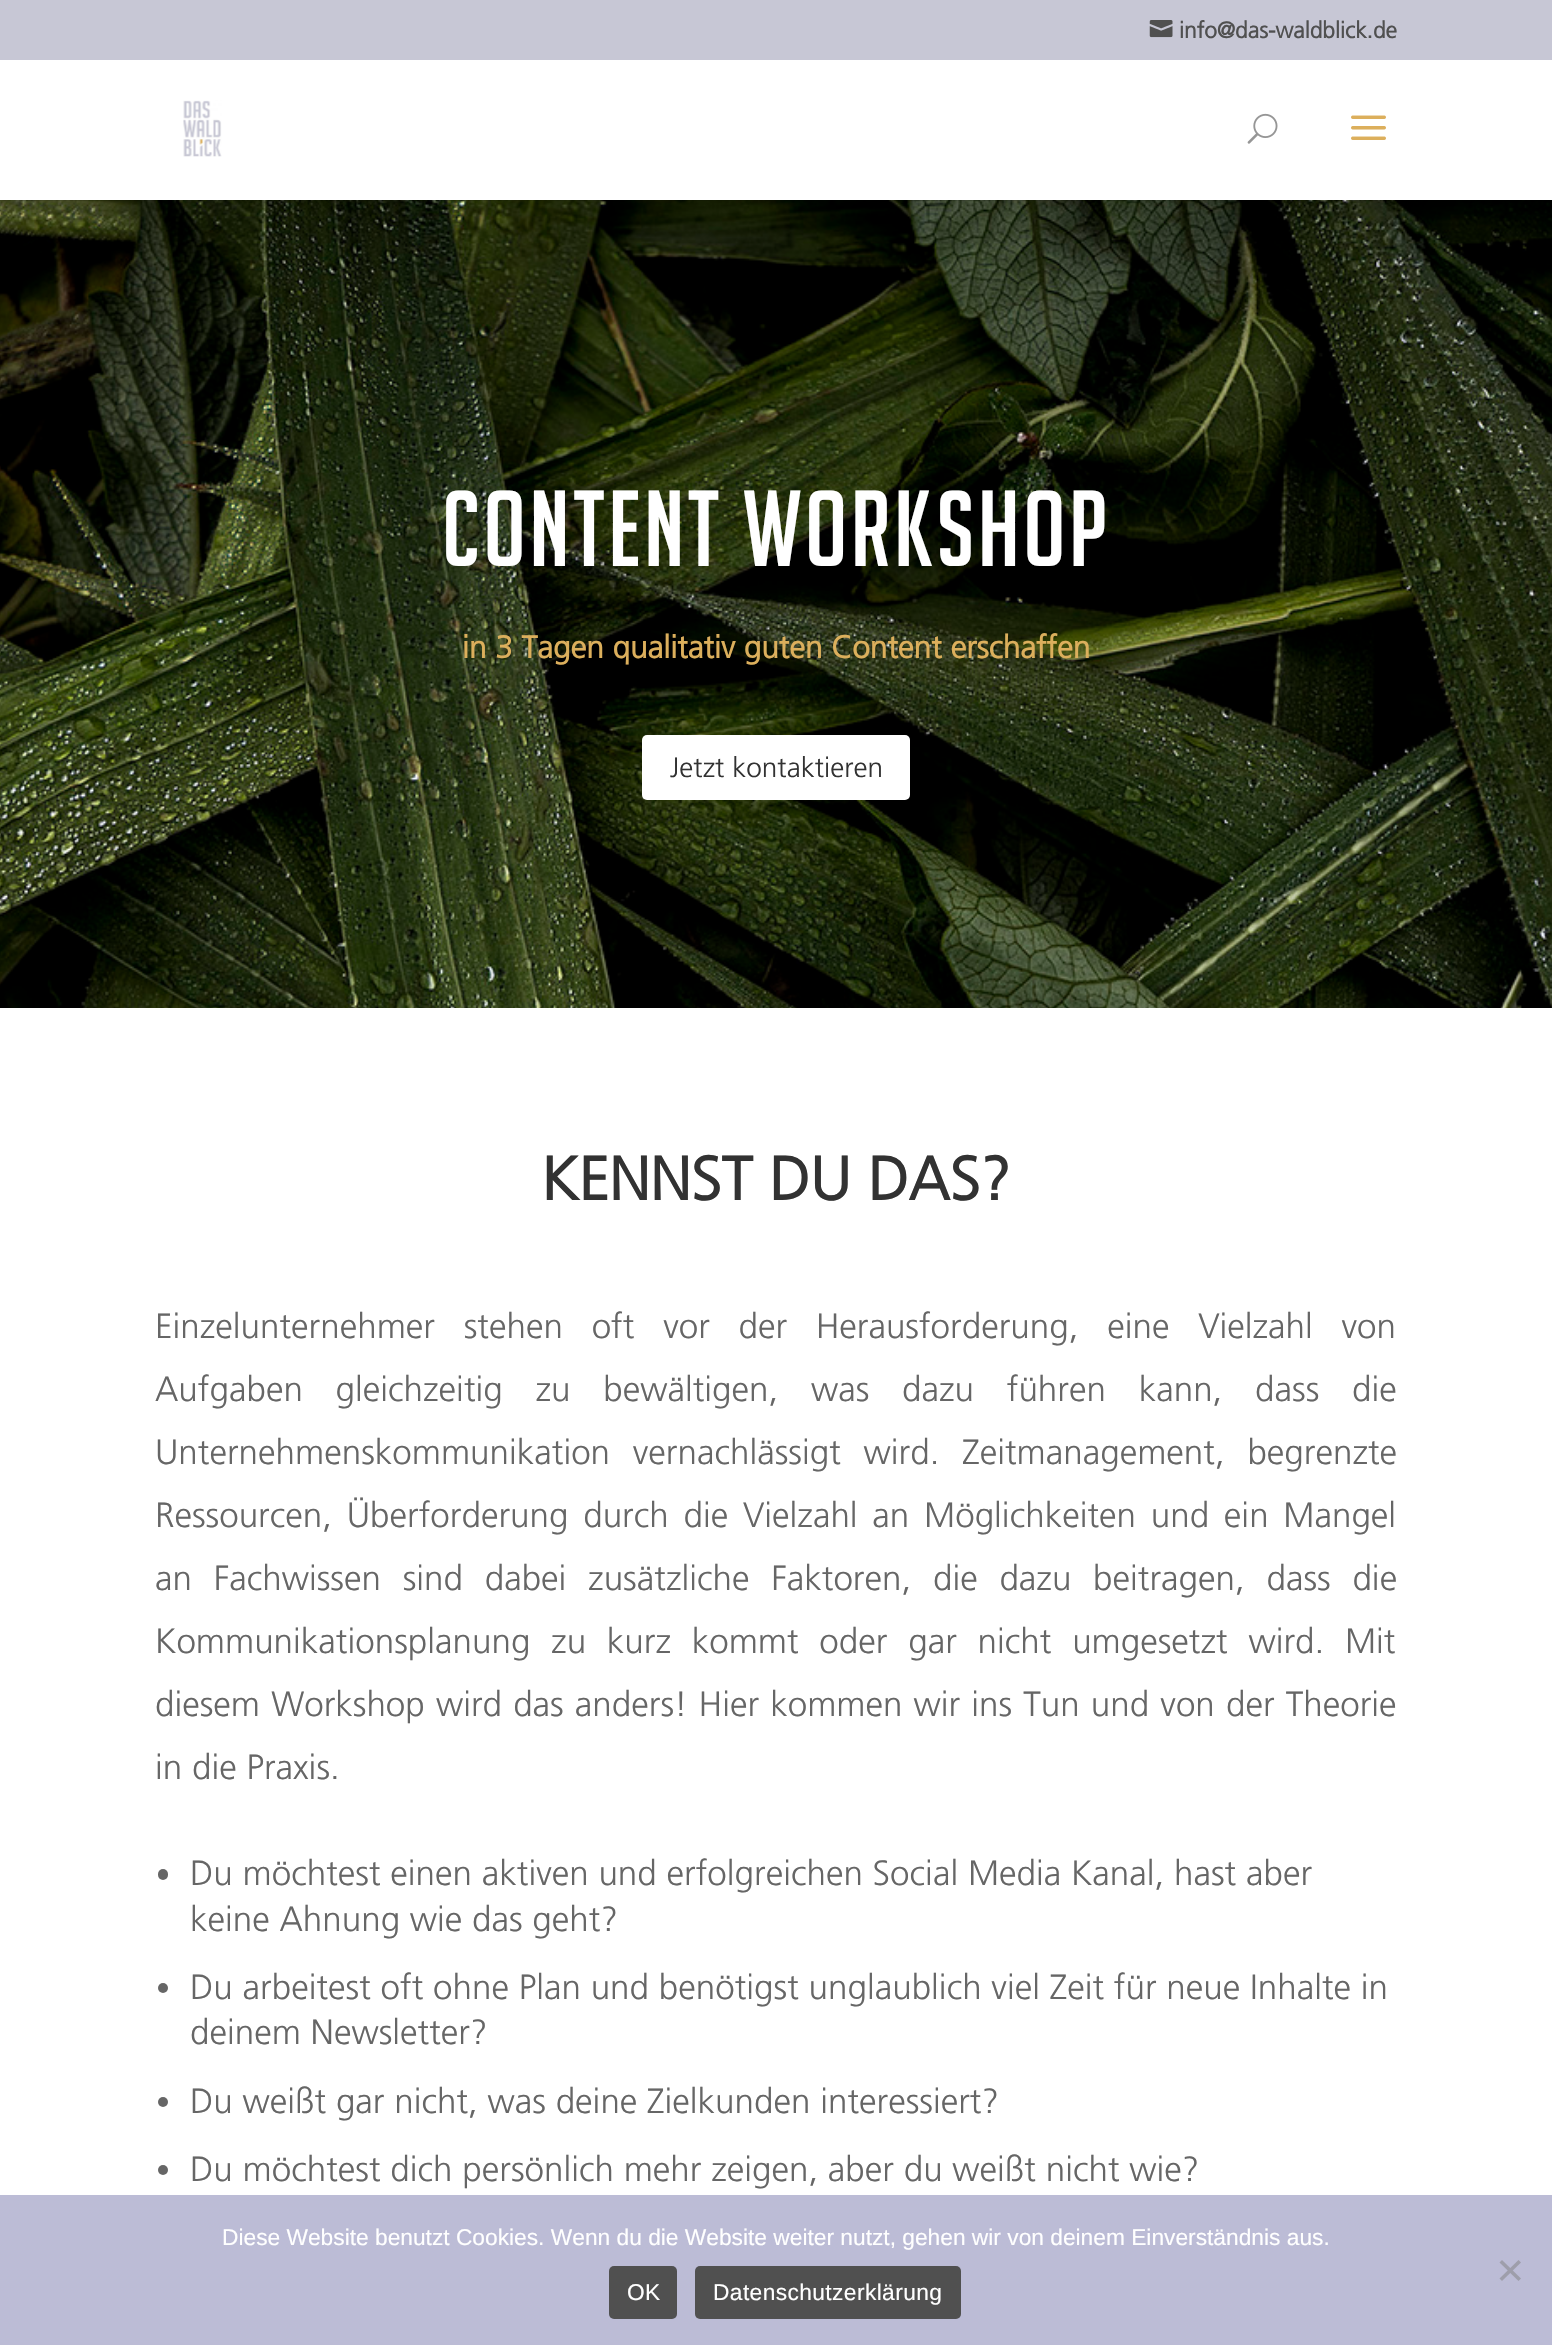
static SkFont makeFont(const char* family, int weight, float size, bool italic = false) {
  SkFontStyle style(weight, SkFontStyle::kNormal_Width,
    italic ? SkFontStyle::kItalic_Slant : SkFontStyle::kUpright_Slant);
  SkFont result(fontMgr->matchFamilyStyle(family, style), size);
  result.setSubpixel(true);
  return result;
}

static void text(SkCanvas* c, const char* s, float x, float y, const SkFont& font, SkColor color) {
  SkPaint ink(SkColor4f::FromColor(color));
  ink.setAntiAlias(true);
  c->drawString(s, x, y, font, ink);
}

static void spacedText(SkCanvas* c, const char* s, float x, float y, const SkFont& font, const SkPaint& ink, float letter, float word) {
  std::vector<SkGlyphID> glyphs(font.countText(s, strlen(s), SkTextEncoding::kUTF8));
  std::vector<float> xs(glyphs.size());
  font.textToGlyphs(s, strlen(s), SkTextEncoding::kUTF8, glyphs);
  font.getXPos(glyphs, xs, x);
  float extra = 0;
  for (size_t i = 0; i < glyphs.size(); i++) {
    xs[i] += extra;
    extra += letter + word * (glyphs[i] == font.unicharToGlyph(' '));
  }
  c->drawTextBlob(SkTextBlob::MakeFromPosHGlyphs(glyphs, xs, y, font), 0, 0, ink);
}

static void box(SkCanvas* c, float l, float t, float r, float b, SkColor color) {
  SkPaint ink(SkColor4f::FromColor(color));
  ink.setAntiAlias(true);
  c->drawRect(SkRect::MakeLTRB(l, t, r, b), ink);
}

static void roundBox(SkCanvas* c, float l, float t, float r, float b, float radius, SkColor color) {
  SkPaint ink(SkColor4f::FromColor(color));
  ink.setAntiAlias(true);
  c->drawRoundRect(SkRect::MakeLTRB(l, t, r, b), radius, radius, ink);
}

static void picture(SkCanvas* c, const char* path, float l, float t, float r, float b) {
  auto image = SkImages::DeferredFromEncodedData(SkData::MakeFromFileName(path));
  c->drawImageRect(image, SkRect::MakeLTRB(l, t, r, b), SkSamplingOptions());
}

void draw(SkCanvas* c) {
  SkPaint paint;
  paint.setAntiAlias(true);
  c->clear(0xffc7c7d5);
  picture(c, "img_01.png", 1149, 20, 1173, 38);
  SkFont face1 = makeFont("Frutiger", 700, 22.75f);
  text(c, "info@das-waldblick.de", 1179, 38, face1, 0xff505050);
  picture(c, "img_05.png", 0, 200, 1552, 1008);
  box(c, 0, 200, 1394, 201, 0x1a000000);
  box(c, 0, 60, 1552, 200, 0xffffffff);
  picture(c, "img_02.png", 183, 100, 222, 157);
  picture(c, "img_03.png", 1247, 113, 1278, 144);
  picture(c, "img_04.png", 1351, 115, 1386, 140);
  SkFont face2 = makeFont("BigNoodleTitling", 400, 105);
  paint.setColor(0xffffffff);
  spacedText(c, "CONTENT WORKSHOP", 442, 566, face2, paint, 3.5f, 0);
  SkFont face3 = makeFont("Frutiger", 700, 31.5f);
  text(c, "in 3 Tagen qualitativ guten Content erschaffen", 462, 658, face3, 0xffdcaf5c);
  roundBox(c, 642, 735, 910, 800, 5, 0xffffffff);
  SkFont face4 = makeFont("Frutiger", 300, 28);
  text(c, "Jetzt kontaktieren", 670, 777, face4, 0xff323232);
  box(c, 0, 1008, 1552, 2195, 0xffffffff);
  SkFont face5 = makeFont("Frutiger", 700, 61.25f);
  text(c, "KENNST DU DAS?", 541, 1200, face5, 0xff323232);
  SkFont face6 = makeFont("Frutiger", 300, 35);
  paint.setColor(0xff666666);
  spacedText(c, "Einzelunternehmer stehen oft vor der Herausforderung, eine Vielzahl von", 155, 1338, face6, paint, 0, 19);
  spacedText(c, "Aufgaben gleichzeitig zu bewältigen, was dazu führen kann, dass die", 155, 1401, face6, paint, 0, 23);
  spacedText(c, "Unternehmenskommunikation vernachlässigt wird. Zeitmanagement, begrenzte", 155, 1464, face6, paint, 0, 13);
  spacedText(c, "Ressourcen, Überforderung durch die Vielzahl an Möglichkeiten und ein Mangel", 155, 1527, face6, paint, 0, 5);
  spacedText(c, "an Fachwissen sind dabei zusätzliche Faktoren, die dazu beitragen, dass die", 155, 1590, face6, paint, 0, 12);
  spacedText(c, "Kommunikationsplanung zu kurz kommt oder gar nicht umgesetzt wird. Mit", 155, 1653, face6, paint, 0, 11);
  spacedText(c, "diesem Workshop wird das anders! Hier kommen wir ins Tun und von der Theorie", 155, 1716, face6, paint, 0, 1.4f);
  text(c, "in die Praxis.", 155, 1779, face6, 0xff666666);
  roundBox(c, 158, 1869, 168, 1880, 5, 0xff666666);
  text(c, "Du möchtest einen aktiven und erfolgreichen Social Media Kanal, hast aber", 190, 1885, face6, 0xff666666);
  text(c, "keine Ahnung wie das geht?", 190, 1931, face6, 0xff666666);
  c->drawCircle(163, 1988, 5, paint);
  text(c, "Du arbeitest oft ohne Plan und benötigst unglaublich viel Zeit für neue Inhalte in", 190, 1999, face6, 0xff666666);
  text(c, "deinem Newsletter?", 190, 2044, face6, 0xff666666);
  c->drawCircle(163, 2102, 5, paint);
  text(c, "Du weißt gar nicht, was deine Zielkunden interessiert?", 190, 2113, face6, 0xff666666);
  c->drawCircle(163, 2170, 5, paint);
  text(c, "Du möchtest dich persönlich mehr zeigen, aber du weißt nicht wie?", 190, 2181, face6, 0xff666666);
  box(c, 0, 2195, 1552, 2345, 0xffbcbcd6);
  SkFont face7 = makeFont("Liberation Sans", 400, 22.75f);
  text(c, "Diese Website benutzt Cookies. Wenn du die Website weiter nutzt, gehen wir von deinem Einverständnis aus.", 222, 2245, face7, 0xffffffff);
  paint.setColor(0xff9e9eab);
  c->drawPath(SkPathBuilder().moveTo(1518.5f, 2260).lineTo(1521, 2262.5f).lineTo(1502, 2281).lineTo(1499.5f, 2278.5f).close().detach(), paint);
  c->drawPath(SkPathBuilder().moveTo(1499.5f, 2262.5f).lineTo(1502, 2260).lineTo(1521, 2278.5f).lineTo(1518.5f, 2281).close().detach(), paint);
  roundBox(c, 609, 2266, 677, 2319, 5, 0xff505050);
  paint.setColor(0xffffffff);
  spacedText(c, "OK", 627, 2300, face7, paint, 0.4f, 0);
  roundBox(c, 695, 2266, 961, 2319, 5, 0xff505050);
  spacedText(c, "Datenschutzerklärung", 713, 2300, face7, paint, 0.4f, 0);
}
